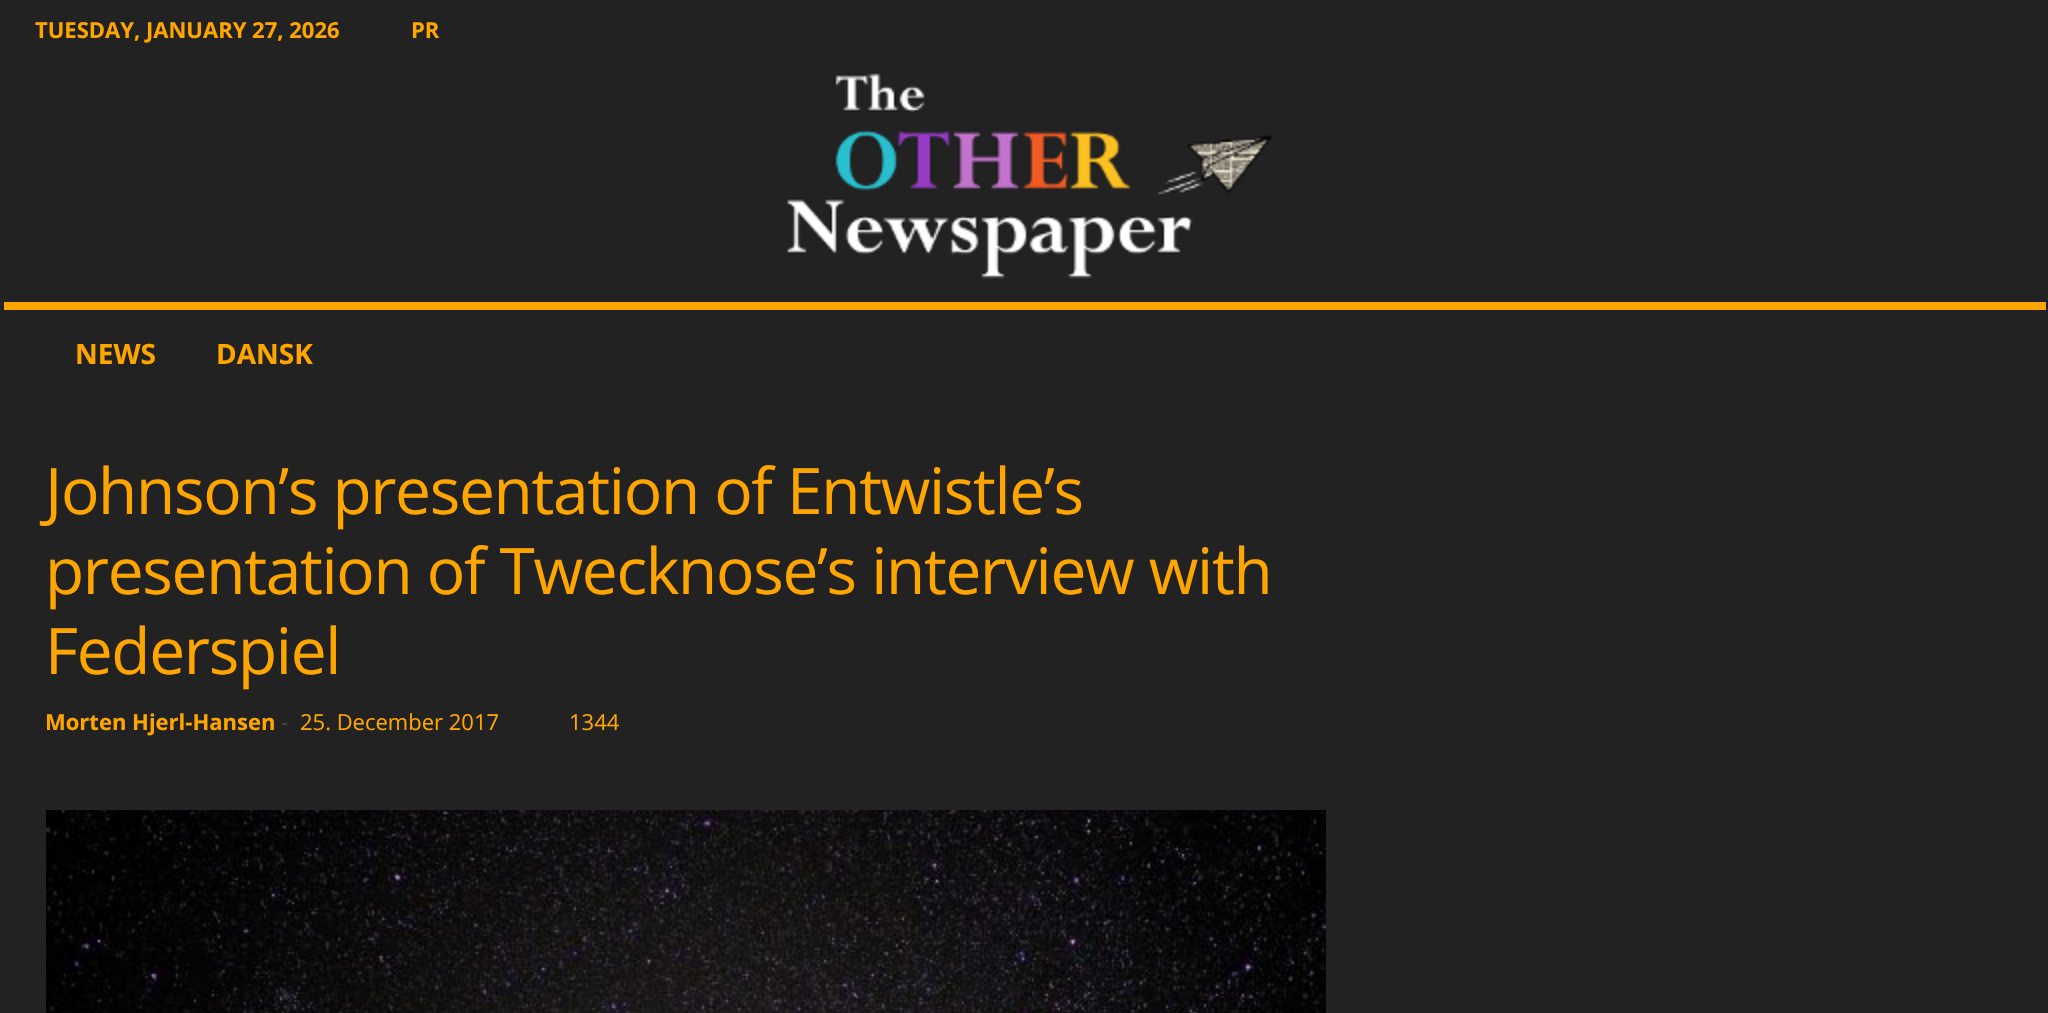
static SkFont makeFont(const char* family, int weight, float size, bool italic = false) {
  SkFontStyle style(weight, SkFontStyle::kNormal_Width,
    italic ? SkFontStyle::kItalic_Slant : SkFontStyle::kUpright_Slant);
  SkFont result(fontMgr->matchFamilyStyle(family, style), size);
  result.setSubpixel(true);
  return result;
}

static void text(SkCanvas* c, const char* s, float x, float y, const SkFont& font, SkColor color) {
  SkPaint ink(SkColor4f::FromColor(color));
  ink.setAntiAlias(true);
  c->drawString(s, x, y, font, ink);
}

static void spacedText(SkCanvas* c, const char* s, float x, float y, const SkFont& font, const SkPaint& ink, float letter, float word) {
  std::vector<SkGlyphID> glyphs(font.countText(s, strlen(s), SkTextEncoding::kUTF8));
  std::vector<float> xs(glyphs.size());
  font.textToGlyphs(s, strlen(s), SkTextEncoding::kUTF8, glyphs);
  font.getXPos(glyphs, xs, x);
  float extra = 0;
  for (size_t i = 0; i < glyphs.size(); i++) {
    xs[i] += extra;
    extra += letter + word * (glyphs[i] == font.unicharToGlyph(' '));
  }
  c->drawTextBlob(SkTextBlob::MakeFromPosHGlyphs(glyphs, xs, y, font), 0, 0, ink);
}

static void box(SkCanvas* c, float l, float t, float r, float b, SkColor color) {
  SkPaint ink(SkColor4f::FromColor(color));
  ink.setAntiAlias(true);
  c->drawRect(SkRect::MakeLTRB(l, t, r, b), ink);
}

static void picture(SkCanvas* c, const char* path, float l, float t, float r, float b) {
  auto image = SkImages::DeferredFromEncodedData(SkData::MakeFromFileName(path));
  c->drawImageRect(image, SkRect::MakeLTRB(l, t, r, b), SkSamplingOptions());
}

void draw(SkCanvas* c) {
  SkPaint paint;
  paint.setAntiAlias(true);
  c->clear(0xff222222);
  SkFont face1 = makeFont("Open Sans", 700, 22);
  text(c, "TUESDAY, JANUARY 27, 2026", 35, 38, face1, 0xffffa500);
  text(c, "PR", 411, 38, face1, 0xffffa500);
  picture(c, "img_01.png", 786, 72, 1272, 279);
  box(c, 4, 302, 2046, 310, 0xffffa500);
  SkFont face2 = makeFont("Open Sans", 700, 28);
  text(c, "NEWS", 75, 364, face2, 0xffffa500);
  text(c, "DANSK", 216, 364, face2, 0xffffa500);
  SkFont face3 = makeFont("Open Sans", 400, 64);
  paint.setColor(0xffffa500);
  spacedText(c, "Johnson’s presentation of Entwistle’s", 45, 514, face3, paint, -1.3f, 0);
  spacedText(c, "presentation of Twecknose’s interview with", 45, 594, face3, paint, -1.3f, 0);
  spacedText(c, "Federspiel", 45, 674, face3, paint, -1.3f, 0);
  text(c, "Morten Hjerl-Hansen", 45, 730, face1, 0xffffa500);
  SkFont face4 = makeFont("Open Sans", 400, 22);
  text(c, "-", 281, 730, face4, 0xff444444);
  text(c, "25. December 2017", 300, 730, face4, 0xffffa500);
  text(c, "1344", 569, 730, face4, 0xffffa500);
  picture(c, "img_02.png", 46, 810, 1326, 1013);
}
